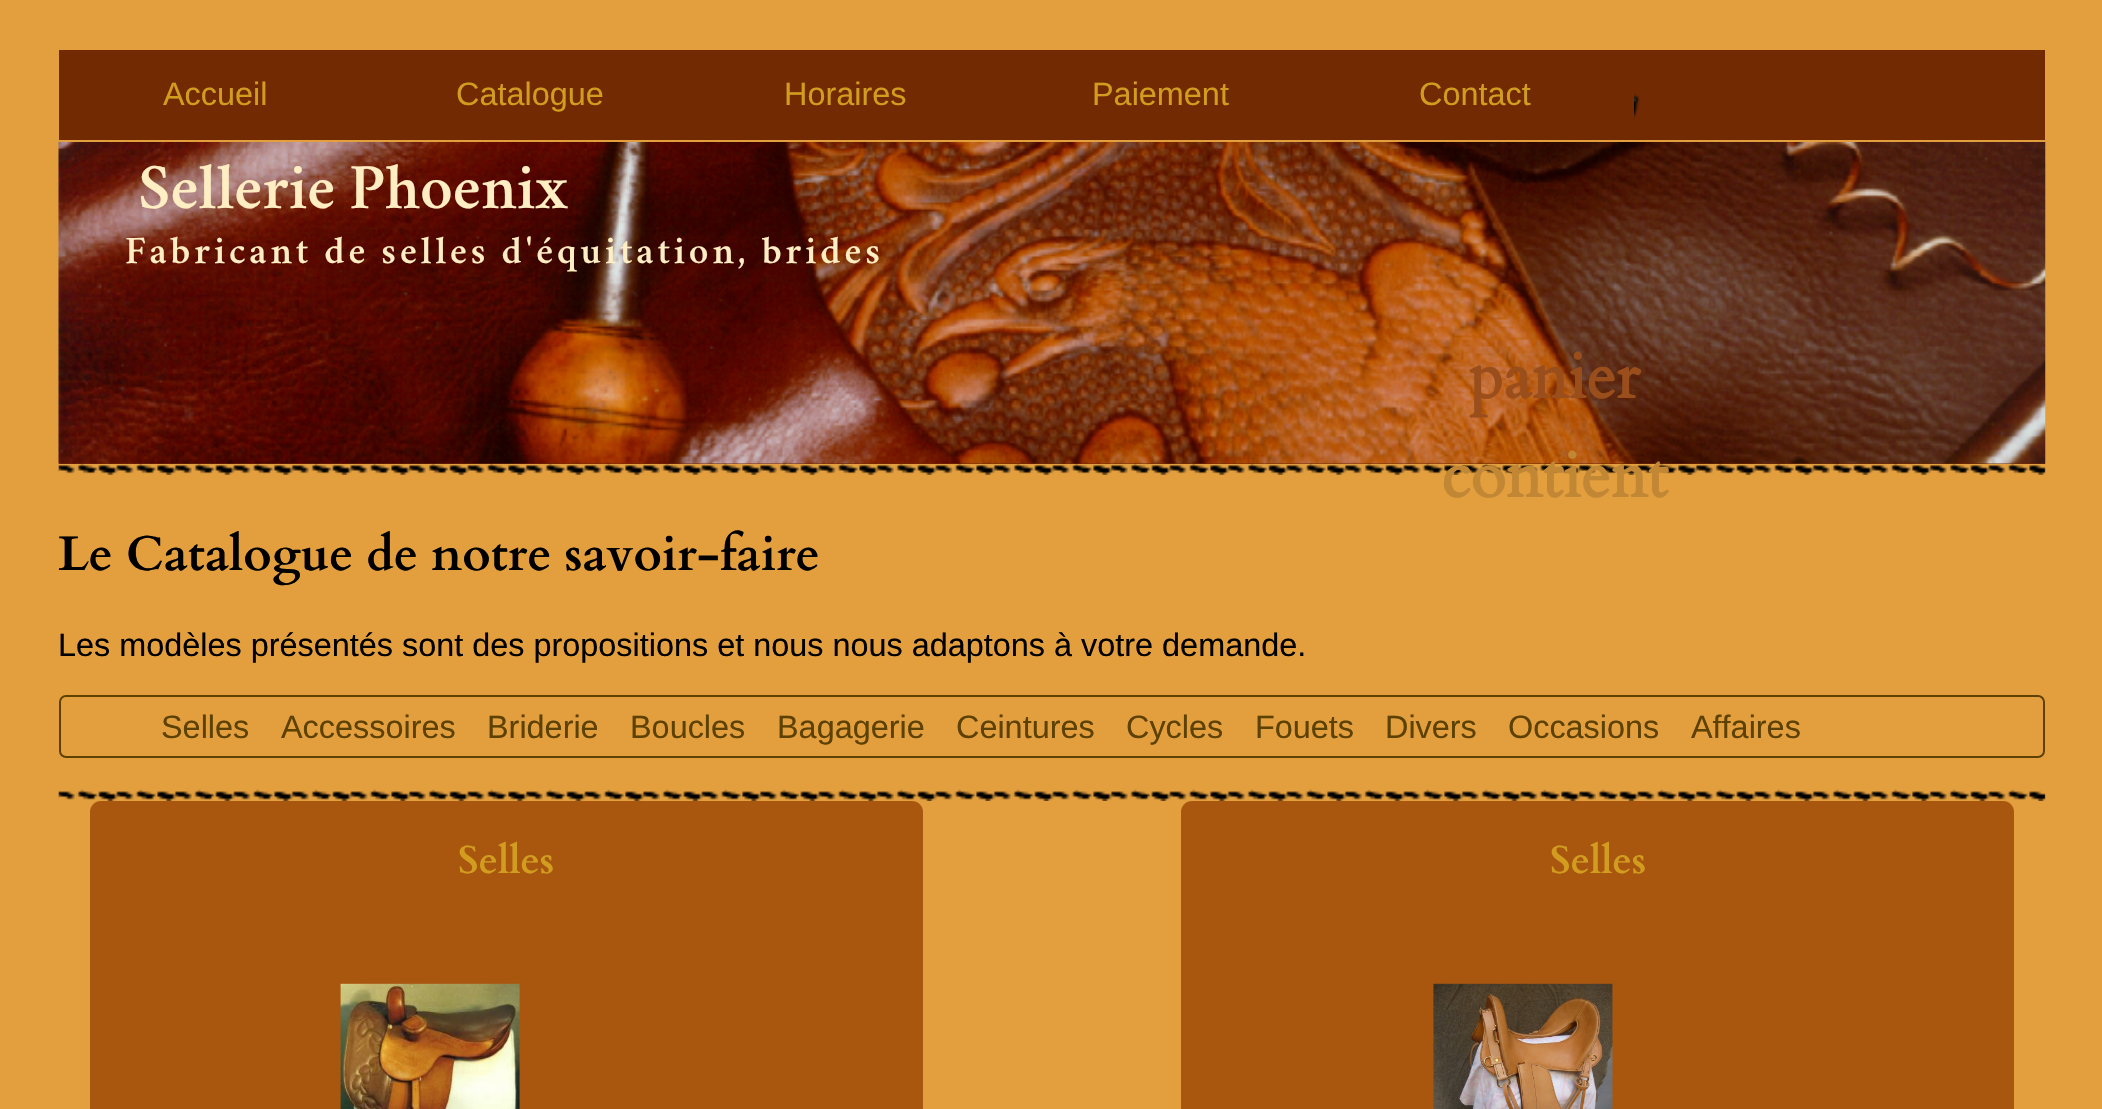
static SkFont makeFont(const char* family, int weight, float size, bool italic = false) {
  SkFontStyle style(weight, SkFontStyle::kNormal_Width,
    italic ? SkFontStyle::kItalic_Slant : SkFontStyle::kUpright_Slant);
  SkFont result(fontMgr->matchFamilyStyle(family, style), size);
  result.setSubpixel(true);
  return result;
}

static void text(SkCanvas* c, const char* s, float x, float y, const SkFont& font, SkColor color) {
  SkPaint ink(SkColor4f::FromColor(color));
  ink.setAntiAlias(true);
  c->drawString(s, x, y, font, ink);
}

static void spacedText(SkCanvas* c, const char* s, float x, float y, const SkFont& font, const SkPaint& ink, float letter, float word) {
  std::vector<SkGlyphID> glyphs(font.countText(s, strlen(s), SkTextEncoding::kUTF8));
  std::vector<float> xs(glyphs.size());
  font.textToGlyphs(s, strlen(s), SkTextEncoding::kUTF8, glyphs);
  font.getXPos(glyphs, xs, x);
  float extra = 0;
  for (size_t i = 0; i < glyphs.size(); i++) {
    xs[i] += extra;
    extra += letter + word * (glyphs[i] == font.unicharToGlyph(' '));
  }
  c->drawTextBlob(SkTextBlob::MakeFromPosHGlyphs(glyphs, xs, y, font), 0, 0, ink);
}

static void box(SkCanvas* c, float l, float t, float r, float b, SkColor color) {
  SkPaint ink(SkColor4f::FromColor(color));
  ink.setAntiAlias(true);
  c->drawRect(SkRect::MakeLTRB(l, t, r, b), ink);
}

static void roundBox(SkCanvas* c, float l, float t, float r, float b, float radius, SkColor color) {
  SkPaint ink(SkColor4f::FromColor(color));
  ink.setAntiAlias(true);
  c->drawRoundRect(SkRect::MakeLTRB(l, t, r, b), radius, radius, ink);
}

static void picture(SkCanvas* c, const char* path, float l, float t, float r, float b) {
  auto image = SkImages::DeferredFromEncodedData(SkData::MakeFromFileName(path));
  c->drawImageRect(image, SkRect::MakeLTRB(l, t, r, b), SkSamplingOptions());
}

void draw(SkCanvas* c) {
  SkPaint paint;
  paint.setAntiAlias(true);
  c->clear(0xffe39e3d);
  box(c, 59, 50, 2045, 140, 0xff722a03);
  SkFont face1 = makeFont("Liberation Sans", 400, 32.4f);
  text(c, "Accueil", 163, 105, face1, 0xffd29d1f);
  text(c, "Catalogue", 456, 105, face1, 0xffd29d1f);
  text(c, "Horaires", 784, 105, face1, 0xffd29d1f);
  text(c, "Paiement", 1092, 105, face1, 0xffd29d1f);
  text(c, "Contact", 1419, 105, face1, 0xffd29d1f);
  box(c, 59, 463, 2045, 464, 0xff722a03);
  picture(c, "img_01.png", 58, 141, 2046, 464);
  box(c, 59, 141, 2045, 142, 0xffe39e3d);
  SkFont face2 = makeFont("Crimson", 600, 64.75f);
  text(c, "Sellerie Phoenix", 138, 208, face2, 0xffffedc3);
  SkFont face3 = makeFont("Crimson", 600, 38.9f);
  paint.setColor(0xffffedc3);
  spacedText(c, "Fabricant de selles d'équitation, brides", 125, 263, face3, paint, 3.9f, 0);
  picture(c, "img_02.png", 1634, 94, 1640, 120);
  SkFont face4 = makeFont("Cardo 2", 700, 64.75f);
  text(c, "panier", 1469, 398, face4, 0xff9a4e1b);
  picture(c, "img_03.png", 58, 463, 2046, 475);
  text(c, "contient", 1441, 497, face4, 0xffc28734);
  SkFont face5 = makeFont("Cardo", 700, 48.6f);
  text(c, "Le Catalogue de notre savoir-faire", 58, 570, face5, 0xff000000);
  text(c, "Les modèles présentés sont des propositions et nous nous adaptons à votre demande.", 58, 656, face1, 0xff000000);
  paint.setStyle(SkPaint::kStroke_Style);
  paint.setStrokeWidth(2);
  paint.setColor(0xff5d4100);
  c->drawRoundRect(SkRect::MakeLTRB(60, 696, 2044, 757), 6, 6, paint);
  text(c, "Selles", 161, 738, face1, 0xff5d4100);
  text(c, "Accessoires", 281, 738, face1, 0xff5d4100);
  text(c, "Briderie", 487, 738, face1, 0xff5d4100);
  text(c, "Boucles", 630, 738, face1, 0xff5d4100);
  text(c, "Bagagerie", 777, 738, face1, 0xff5d4100);
  text(c, "Ceintures", 956, 738, face1, 0xff5d4100);
  text(c, "Cycles", 1126, 738, face1, 0xff5d4100);
  text(c, "Fouets", 1255, 738, face1, 0xff5d4100);
  text(c, "Divers", 1385, 738, face1, 0xff5d4100);
  text(c, "Occasions", 1508, 738, face1, 0xff5d4100);
  text(c, "Affaires", 1691, 738, face1, 0xff5d4100);
  picture(c, "img_04.png", 58, 789, 2046, 801);
  roundBox(c, 90, 801, 923, 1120, 11, 0xffa9560f);
  SkFont face6 = makeFont("Cardo", 700, 38.9f);
  text(c, "Selles", 458, 873, face6, 0xffd29d1f);
  picture(c, "img_05.png", 340, 983, 520, 1109);
  roundBox(c, 1181, 801, 2014, 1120, 11, 0xffa9560f);
  text(c, "Selles", 1550, 873, face6, 0xffd29d1f);
  picture(c, "img_06.png", 1433, 983, 1613, 1109);
}
